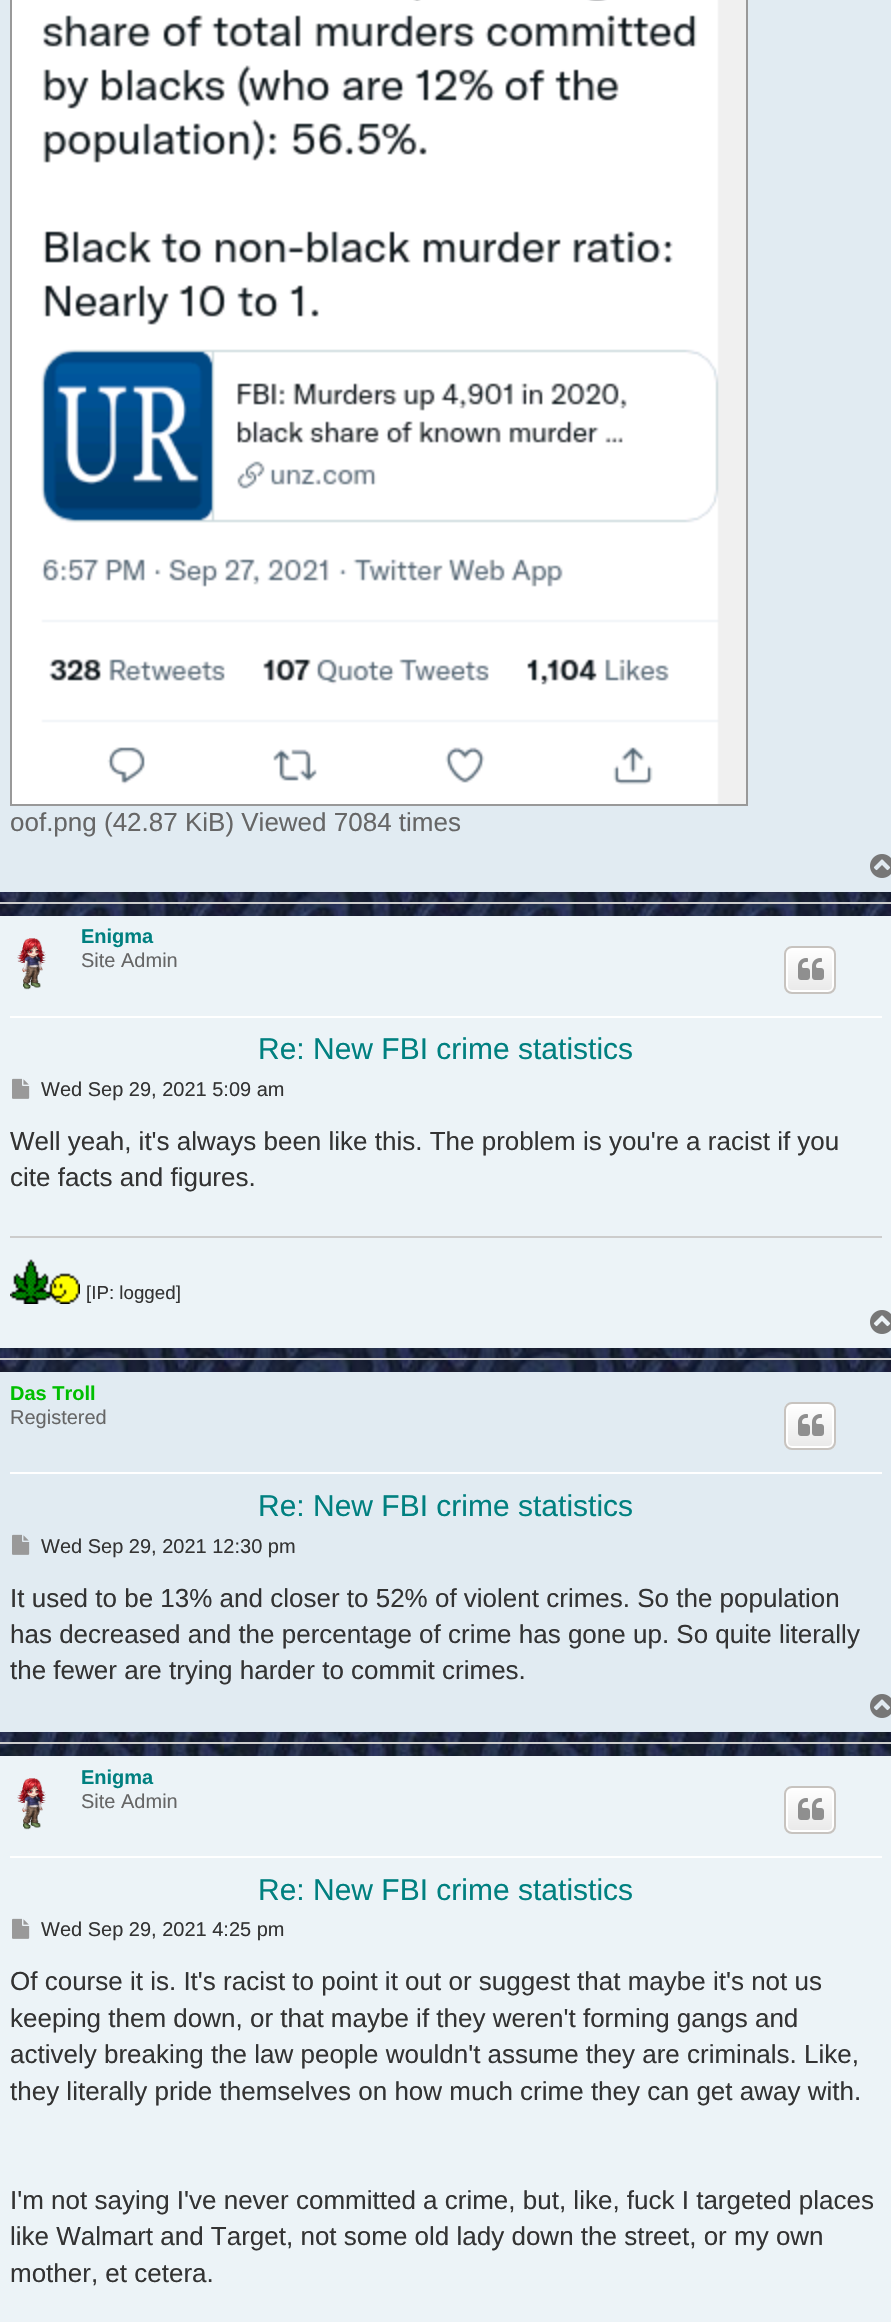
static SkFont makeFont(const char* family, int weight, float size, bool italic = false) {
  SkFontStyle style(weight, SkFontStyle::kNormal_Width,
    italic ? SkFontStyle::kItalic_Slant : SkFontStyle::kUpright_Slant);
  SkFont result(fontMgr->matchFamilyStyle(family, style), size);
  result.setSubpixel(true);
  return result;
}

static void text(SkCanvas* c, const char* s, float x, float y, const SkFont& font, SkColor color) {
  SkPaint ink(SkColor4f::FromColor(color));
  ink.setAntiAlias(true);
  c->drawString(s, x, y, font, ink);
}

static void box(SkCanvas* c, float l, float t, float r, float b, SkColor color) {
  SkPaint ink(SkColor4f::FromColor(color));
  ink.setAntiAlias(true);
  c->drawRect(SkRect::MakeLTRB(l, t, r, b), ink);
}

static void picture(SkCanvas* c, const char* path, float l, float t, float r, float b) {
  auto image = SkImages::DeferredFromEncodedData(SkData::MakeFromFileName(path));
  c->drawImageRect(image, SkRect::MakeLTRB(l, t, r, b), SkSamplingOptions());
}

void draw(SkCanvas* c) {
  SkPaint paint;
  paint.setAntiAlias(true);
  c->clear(0xffffffff);
  picture(c, "img_01.png", 0, 892, 891, 1756);
  box(c, 0, 0, 891, 892, 0xffe1ebf2);
  paint.setStyle(SkPaint::kStroke_Style);
  paint.setStrokeWidth(2);
  paint.setColor(0xff999999);
  c->drawRect(SkRect::MakeLTRB(11, -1, 747, 805), paint);
  picture(c, "img_02.png", 12, 0, 746, 804);
  SkFont face1 = makeFont("Liberation Sans", 400, 26);
  text(c, "oof.png (42.87 KiB) Viewed 7084 times", 10, 831, face1, 0xff666666);
  picture(c, "img_03.png", 870, 854, 891, 878);
  box(c, 0, 902, 891, 904, 0xffcccccc);
  box(c, 0, 916, 891, 1348, 0xffecf3f7);
  box(c, 10, 1016, 882, 1018, 0xffffffff);
  picture(c, "img_04.png", 17, 938, 46, 990);
  SkFont face2 = makeFont("Liberation Sans", 700, 20);
  text(c, "Enigma", 81, 943, face2, 0xff008080);
  SkFont face3 = makeFont("Liberation Sans", 400, 20);
  text(c, "Site Admin", 81, 967, face3, 0xff666666);
  c->save();
  c->clipPath(SkPathBuilder().moveTo(792, 946).lineTo(828, 946).cubicTo(832.5f, 946, 836, 949.5f, 836, 954).lineTo(836, 986).cubicTo(836, 990.5f, 832.5f, 994, 828, 994).lineTo(792, 994).cubicTo(787.5f, 994, 784, 990.5f, 784, 986).lineTo(784, 954).cubicTo(784, 949.5f, 787.5f, 946, 792, 946).close().detach(), true);
  paint.setStyle(SkPaint::kFill_Style);
  {
    const SkColor colors[] = {0xffffffff, 0xffe9e9e9};
    const float stops[] = {0, 1};
    const SkPoint ends[] = {{810, 948}, {810, 992}};
    paint.setShader(SkGradientShader::MakeLinear(ends, colors, stops, 2, SkTileMode::kClamp));
    paint.setAlpha(255);
  }
  c->drawRect(SkRect::MakeLTRB(784, 948, 836, 992), paint);
  c->restore();
  paint.setStyle(SkPaint::kStroke_Style);
  paint.setShader(nullptr);
  paint.setColor(0xffffffff);
  c->drawRoundRect(SkRect::MakeLTRB(787, 949, 833, 991), 5, 5, paint);
  paint.setColor(0xffc7c3bf);
  c->drawRoundRect(SkRect::MakeLTRB(785, 947, 835, 993), 7, 7, paint);
  picture(c, "img_05.png", 798, 958, 824, 980);
  SkFont face4 = makeFont("Liberation Sans", 400, 30);
  text(c, "Re: New FBI crime statistics", 258, 1059, face4, 0xff008080);
  picture(c, "img_06.png", 12, 1078, 30, 1099);
  text(c, "Wed Sep 29, 2021 5:09 am", 41, 1096, face3, 0xff333333);
  text(c, "Well yeah, it's always been like this. The problem is you're a racist if you", 10, 1150, face1, 0xff333333);
  text(c, "cite facts and figures.", 10, 1186, face1, 0xff333333);
  box(c, 10, 1236, 882, 1238, 0xffcccccc);
  picture(c, "img_07.png", 10, 1259, 80, 1304);
  SkFont face5 = makeFont("Liberation Sans", 400, 18.75f);
  text(c, "[IP: logged]", 86, 1299, face5, 0xff333333);
  picture(c, "img_08.png", 870, 1310, 891, 1334);
  box(c, 0, 1358, 891, 1360, 0xffcccccc);
  box(c, 0, 1372, 891, 1732, 0xffe1ebf2);
  box(c, 10, 1472, 882, 1474, 0xffffffff);
  text(c, "Das Troll", 10, 1400, face2, 0xff00bf00);
  text(c, "Registered", 10, 1424, face3, 0xff666666);
  c->save();
  c->clipPath(SkPathBuilder().moveTo(792, 1402).lineTo(828, 1402).cubicTo(832.5f, 1402, 836, 1405.5f, 836, 1410).lineTo(836, 1442).cubicTo(836, 1446.5f, 832.5f, 1450, 828, 1450).lineTo(792, 1450).cubicTo(787.5f, 1450, 784, 1446.5f, 784, 1442).lineTo(784, 1410).cubicTo(784, 1405.5f, 787.5f, 1402, 792, 1402).close().detach(), true);
  paint.setStyle(SkPaint::kFill_Style);
  {
    const SkColor colors[] = {0xffffffff, 0xffe9e9e9};
    const float stops[] = {0, 1};
    const SkPoint ends[] = {{810, 1404}, {810, 1448}};
    paint.setShader(SkGradientShader::MakeLinear(ends, colors, stops, 2, SkTileMode::kClamp));
    paint.setAlpha(255);
  }
  c->drawRect(SkRect::MakeLTRB(784, 1404, 836, 1448), paint);
  c->restore();
  paint.setStyle(SkPaint::kStroke_Style);
  paint.setShader(nullptr);
  paint.setColor(0xffffffff);
  c->drawRoundRect(SkRect::MakeLTRB(787, 1405, 833, 1447), 5, 5, paint);
  paint.setColor(0xffc7c3bf);
  c->drawRoundRect(SkRect::MakeLTRB(785, 1403, 835, 1449), 7, 7, paint);
  picture(c, "img_05.png", 798, 1414, 824, 1436);
  text(c, "Re: New FBI crime statistics", 258, 1516, face4, 0xff008080);
  picture(c, "img_09.png", 12, 1534, 30, 1555);
  text(c, "Wed Sep 29, 2021 12:30 pm", 41, 1553, face3, 0xff333333);
  text(c, "It used to be 13% and closer to 52% of violent crimes. So the population", 10, 1607, face1, 0xff333333);
  text(c, "has decreased and the percentage of crime has gone up. So quite literally", 10, 1643, face1, 0xff333333);
  text(c, "the fewer are trying harder to commit crimes.", 10, 1679, face1, 0xff333333);
  picture(c, "img_03.png", 870, 1694, 891, 1718);
  box(c, 0, 1742, 891, 1744, 0xffcccccc);
  box(c, 0, 1756, 891, 2322, 0xffecf3f7);
  box(c, 10, 1856, 882, 1858, 0xffffffff);
  picture(c, "img_04.png", 17, 1778, 46, 1830);
  text(c, "Enigma", 81, 1784, face2, 0xff008080);
  text(c, "Site Admin", 81, 1808, face3, 0xff666666);
  c->save();
  c->clipPath(SkPathBuilder().moveTo(792, 1786).lineTo(828, 1786).cubicTo(832.5f, 1786, 836, 1789.5f, 836, 1794).lineTo(836, 1826).cubicTo(836, 1830.5f, 832.5f, 1834, 828, 1834).lineTo(792, 1834).cubicTo(787.5f, 1834, 784, 1830.5f, 784, 1826).lineTo(784, 1794).cubicTo(784, 1789.5f, 787.5f, 1786, 792, 1786).close().detach(), true);
  paint.setStyle(SkPaint::kFill_Style);
  {
    const SkColor colors[] = {0xffffffff, 0xffe9e9e9};
    const float stops[] = {0, 1};
    const SkPoint ends[] = {{810, 1788}, {810, 1832}};
    paint.setShader(SkGradientShader::MakeLinear(ends, colors, stops, 2, SkTileMode::kClamp));
    paint.setAlpha(255);
  }
  c->drawRect(SkRect::MakeLTRB(784, 1788, 836, 1832), paint);
  c->restore();
  paint.setStyle(SkPaint::kStroke_Style);
  paint.setShader(nullptr);
  paint.setColor(0xffffffff);
  c->drawRoundRect(SkRect::MakeLTRB(787, 1789, 833, 1831), 5, 5, paint);
  paint.setColor(0xffc7c3bf);
  c->drawRoundRect(SkRect::MakeLTRB(785, 1787, 835, 1833), 7, 7, paint);
  picture(c, "img_05.png", 798, 1798, 824, 1820);
  text(c, "Re: New FBI crime statistics", 258, 1900, face4, 0xff008080);
  picture(c, "img_06.png", 12, 1918, 30, 1939);
  text(c, "Wed Sep 29, 2021 4:25 pm", 41, 1936, face3, 0xff333333);
  text(c, "Of course it is. It's racist to point it out or suggest that maybe it's not us", 10, 1990, face1, 0xff333333);
  text(c, "keeping them down, or that maybe if they weren't forming gangs and", 10, 2027, face1, 0xff333333);
  text(c, "actively breaking the law people wouldn't assume they are criminals. Like,", 10, 2063, face1, 0xff333333);
  text(c, "they literally pride themselves on how much crime they can get away with.", 10, 2100, face1, 0xff333333);
  text(c, "I'm not saying I've never committed a crime, but, like, fuck I targeted places", 10, 2209, face1, 0xff333333);
  text(c, "like Walmart and Target, not some old lady down the street, or my own", 10, 2245, face1, 0xff333333);
  text(c, "mother, et cetera.", 10, 2282, face1, 0xff333333);
}
